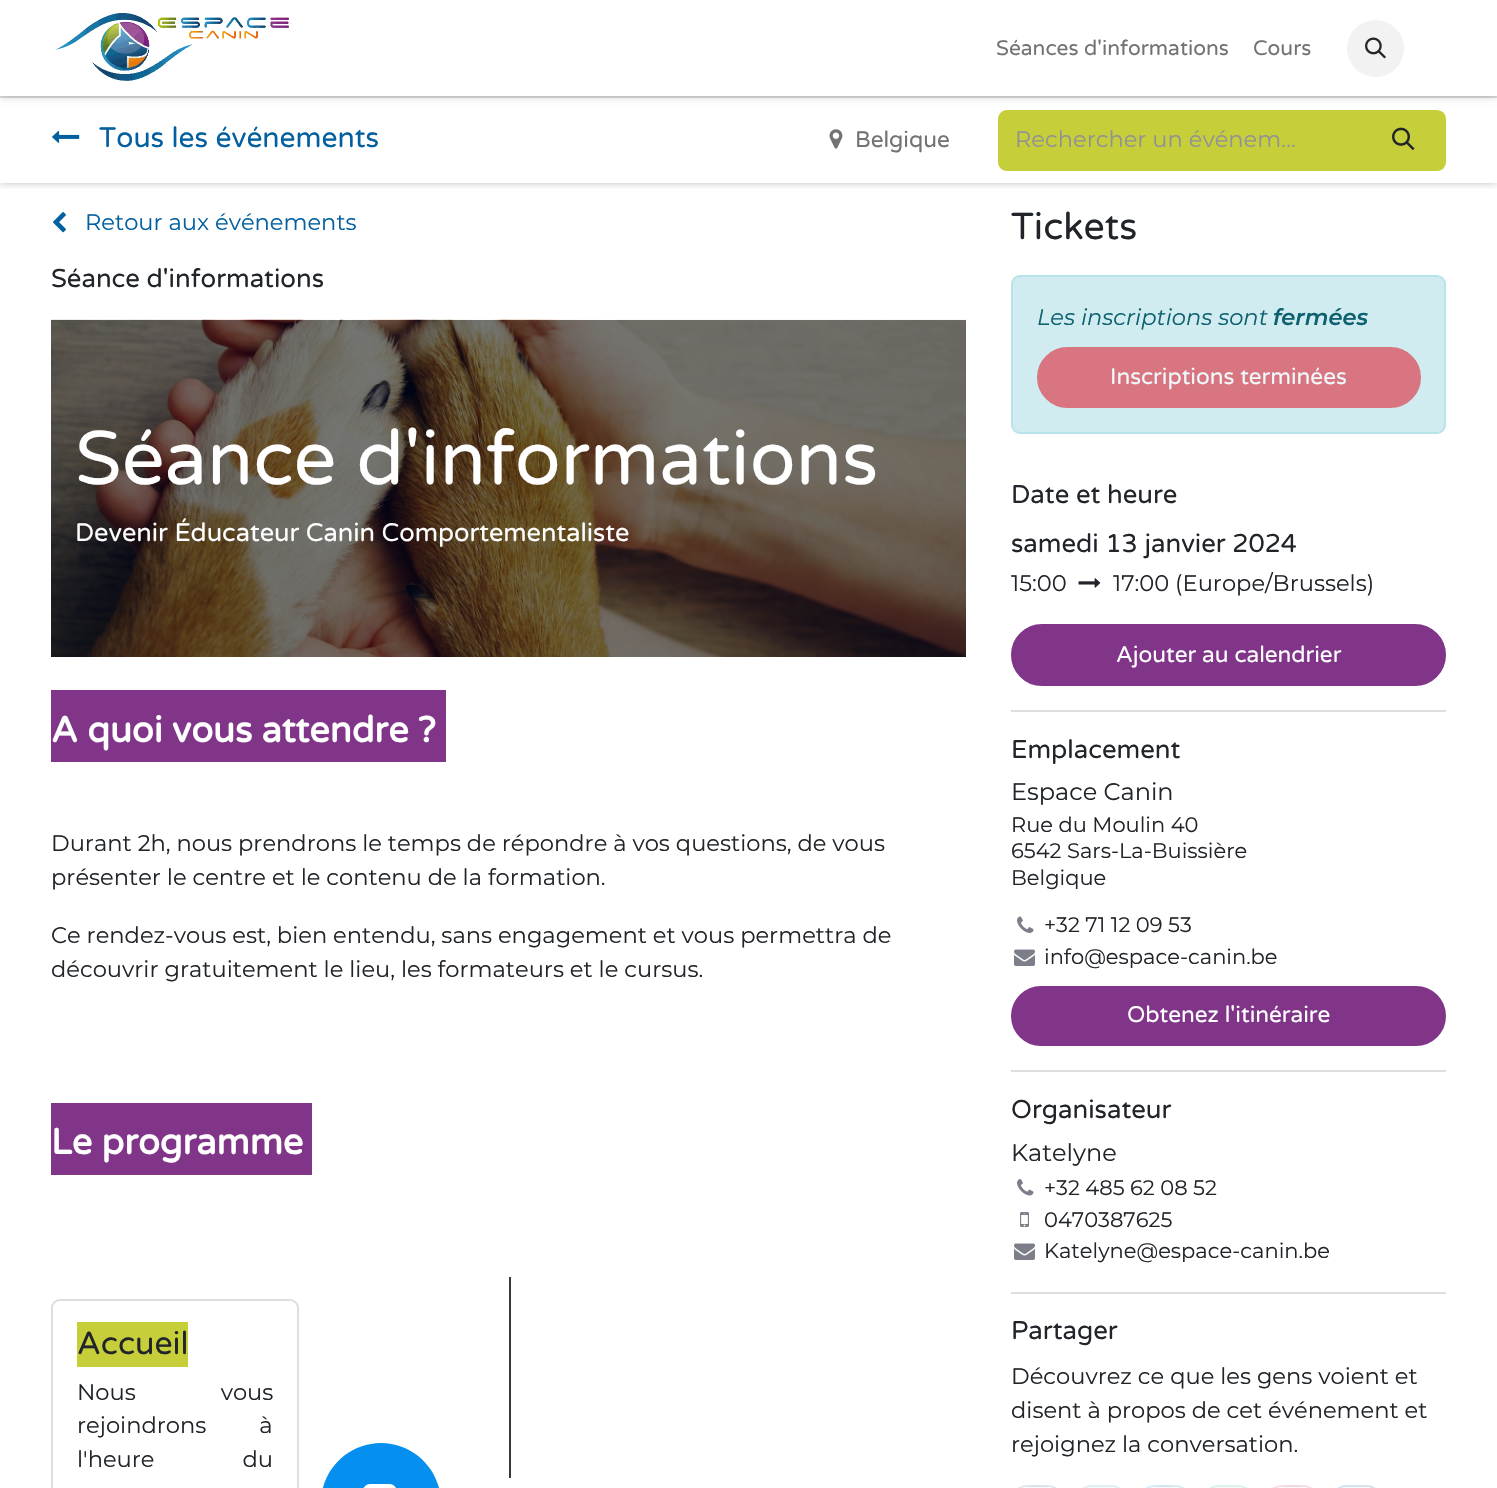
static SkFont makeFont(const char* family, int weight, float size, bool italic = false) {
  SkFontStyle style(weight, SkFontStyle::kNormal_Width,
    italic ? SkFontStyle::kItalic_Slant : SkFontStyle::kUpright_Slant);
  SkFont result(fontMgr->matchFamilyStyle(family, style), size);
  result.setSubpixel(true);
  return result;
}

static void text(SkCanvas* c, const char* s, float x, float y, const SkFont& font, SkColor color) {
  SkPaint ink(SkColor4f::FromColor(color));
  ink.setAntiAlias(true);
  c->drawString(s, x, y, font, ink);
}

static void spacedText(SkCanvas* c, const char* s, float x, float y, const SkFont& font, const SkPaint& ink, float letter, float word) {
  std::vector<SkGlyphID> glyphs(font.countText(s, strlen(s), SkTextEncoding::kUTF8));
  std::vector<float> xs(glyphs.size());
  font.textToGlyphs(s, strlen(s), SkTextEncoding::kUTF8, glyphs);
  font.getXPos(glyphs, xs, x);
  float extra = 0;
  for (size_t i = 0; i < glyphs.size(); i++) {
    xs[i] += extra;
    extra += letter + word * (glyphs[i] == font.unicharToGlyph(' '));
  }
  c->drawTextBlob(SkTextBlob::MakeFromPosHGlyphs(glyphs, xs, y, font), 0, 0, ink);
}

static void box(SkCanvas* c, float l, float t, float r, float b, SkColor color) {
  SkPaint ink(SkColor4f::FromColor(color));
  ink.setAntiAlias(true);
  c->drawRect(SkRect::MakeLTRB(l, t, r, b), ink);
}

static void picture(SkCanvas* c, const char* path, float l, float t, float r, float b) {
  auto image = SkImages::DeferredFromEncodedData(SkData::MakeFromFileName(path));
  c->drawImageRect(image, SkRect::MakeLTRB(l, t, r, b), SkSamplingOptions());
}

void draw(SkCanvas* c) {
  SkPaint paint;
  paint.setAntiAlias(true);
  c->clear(0xffffffff);
  c->save();
  c->clipRect(SkRect::MakeLTRB(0, 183, 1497, 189));
  paint.setColor(0x40000000);
  paint.setMaskFilter(SkMaskFilter::MakeBlur(kNormal_SkBlurStyle, 4));
  c->drawRect(SkRect::MakeLTRB(0, 96, 1497, 183), paint);
  paint.setMaskFilter(nullptr);
  c->restore();
  box(c, 0, 96, 1497, 98, 0xffdededf);
  paint.setMaskFilter(SkMaskFilter::MakeBlur(kNormal_SkBlurStyle, 4));
  c->drawRect(SkRect::MakeLTRB(0, 0, 1497, 96), paint);
  paint.setMaskFilter(nullptr);
  box(c, 0, 0, 1497, 96, 0xffffffff);
  picture(c, "img_01.png", 56, 13, 289, 81);
  SkFont face1 = makeFont("Varela Round", 400, 21);
  text(c, "Séances d'informations", 996, 55, face1, 0xff737373);
  text(c, "Cours", 1253, 55, face1, 0xff737373);
  paint.setColor(0xfff2f2f2);
  c->drawCircle(1375.5f, 48.5f, 28.5f, paint);
  picture(c, "img_02.png", 1365, 37, 1386, 59);
  picture(c, "img_03.png", 52, 130, 80, 143);
  SkFont face2 = makeFont("Varela Round", 400, 28.25f);
  text(c, "Tous les événements", 99, 147, face2, 0xff0360a0);
  picture(c, "img_04.png", 829, 129, 843, 149);
  SkFont face3 = makeFont("Varela Round", 400, 22.6f);
  text(c, "Belgique", 855, 147, face3, 0xff737373);
  paint.setColor(0xffc6ce3a);
  c->drawPath(SkPathBuilder().moveTo(1007, 110).lineTo(1362, 110).lineTo(1362, 171).lineTo(1007, 171).cubicTo(1002, 171, 998, 167, 998, 162).lineTo(998, 119).cubicTo(998, 114, 1002, 110, 1007, 110).close().detach(), paint);
  SkFont face4 = makeFont("Montserrat", 400, 22.6f);
  text(c, "Rechercher un événem…", 1015, 147, face4, 0xff909294);
  c->drawPath(SkPathBuilder().moveTo(1362, 111).lineTo(1437, 111).cubicTo(1441.5f, 111, 1445, 114.5f, 1445, 119).lineTo(1445, 162).cubicTo(1445, 166.5f, 1441.5f, 170, 1437, 170).lineTo(1362, 170).close().detach(), paint);
  paint.setStyle(SkPaint::kStroke_Style);
  paint.setStrokeWidth(2);
  c->drawPath(SkPathBuilder().moveTo(1362, 111).lineTo(1437, 111).cubicTo(1441.5f, 111, 1445, 114.5f, 1445, 119).lineTo(1445, 162).cubicTo(1445, 166.5f, 1441.5f, 170, 1437, 170).lineTo(1362, 170).close().detach(), paint);
  picture(c, "img_05.png", 1392, 127, 1415, 151);
  picture(c, "img_06.png", 53, 212, 66, 233);
  text(c, "Retour aux événements", 85, 230, face4, 0xff0360a0);
  SkFont face5 = makeFont("Varela Round", 400, 25.75f);
  text(c, "Séance d'informations", 51, 287, face5, 0xff212529);
  picture(c, "img_07.png", 51, 319, 966, 657);
  SkFont face6 = makeFont("Varela Round", 400, 75.75f);
  text(c, "Séance d'informations", 75, 484, face6, 0xffffffff);
  SkFont face7 = makeFont("Varela Round", 400, 25.4f);
  text(c, "Devenir Éducateur Canin Comportementaliste", 75, 541, face7, 0xffffffff);
  box(c, 51, 690, 446, 762, 0xff803589);
  SkFont face8 = makeFont("Varela Round", 700, 36);
  text(c, "A quoi vous attendre ?", 51, 742, face8, 0xffffffff);
  text(c, "Durant 2h, nous prendrons le temps de répondre à vos questions, de vous", 51, 851, face4, 0xff212529);
  text(c, "présenter le centre et le contenu de la formation.", 51, 885, face4, 0xff212529);
  text(c, "Ce rendez-vous est, bien entendu, sans engagement et vous permettra de", 51, 943, face4, 0xff212529);
  text(c, "découvrir gratuitement le lieu, les formateurs et le cursus.", 51, 977, face4, 0xff212529);
  box(c, 51, 1103, 312, 1175, 0xff803589);
  text(c, "Le programme", 51, 1154, face8, 0xffffffff);
  paint.setColor(0xffdededf);
  c->drawRoundRect(SkRect::MakeLTRB(52, 1300, 298, 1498), 8, 8, paint);
  paint.setStyle(SkPaint::kFill_Style);
  paint.setColor(0xe6ffffff);
  c->drawPath(SkPathBuilder().moveTo(61, 1301).lineTo(289, 1301).cubicTo(293.5f, 1301, 297, 1304.5f, 297, 1309).lineTo(297, 1488).lineTo(53, 1488).lineTo(53, 1309).cubicTo(53, 1304.5f, 56.5f, 1301, 61, 1301).close().detach(), paint);
  box(c, 77, 1322, 188, 1367, 0xffc6ce3a);
  SkFont face9 = makeFont("Varela Round", 400, 32);
  text(c, "Accueil", 77, 1354, face9, 0xff212529);
  paint.setColor(0xff212529);
  spacedText(c, "Nous vous", 77, 1400, face4, paint, 0, 79);
  spacedText(c, "rejoindrons à", 77, 1433, face4, paint, 0, 47);
  spacedText(c, "l'heure du", 77, 1467, face4, paint, 0, 82);
  paint.setColor(0xff0590f0);
  c->drawPath(SkPathBuilder().moveTo(381, 1443).cubicTo(414, 1443, 441, 1470, 441, 1503).lineTo(441, 1488).lineTo(321, 1488).lineTo(321, 1503).cubicTo(321, 1470, 348, 1443, 381, 1443).close().detach(), paint);
  picture(c, "img_08.png", 363, 1484, 396, 1488);
  box(c, 509, 1277, 511, 1478, 0xff343a40);
  SkFont face10 = makeFont("Varela Round", 400, 37.5f);
  text(c, "Tickets", 1011, 239, face10, 0xff212529);
  paint.setColor(0xffd1ecf1);
  c->drawRoundRect(SkRect::MakeLTRB(1012, 276, 1445, 433), 8, 8, paint);
  paint.setStyle(SkPaint::kStroke_Style);
  paint.setColor(0xffb9e3ea);
  c->drawRoundRect(SkRect::MakeLTRB(1012, 276, 1445, 433), 8, 8, paint);
  SkFont face11 = makeFont("Montserrat", 400, 22.6f, true);
  text(c, "Les inscriptions sont", 1037, 325, face11, 0xff0e616e);
  SkFont face12 = makeFont("Montserrat", 600, 22.6f, true);
  text(c, "fermées", 1273, 325, face12, 0xff0e616e);
  paint.setStyle(SkPaint::kFill_Style);
  paint.setColor(0xffd87581);
  c->drawRoundRect(SkRect::MakeLTRB(1038, 348, 1420, 407), 29.5f, 29.5f, paint);
  paint.setStyle(SkPaint::kStroke_Style);
  c->drawRoundRect(SkRect::MakeLTRB(1038, 348, 1420, 407), 29.5f, 29.5f, paint);
  text(c, "Inscriptions terminées", 1110, 384, face3, 0xffeff8fa);
  box(c, 1011, 710, 1446, 712, 0xffdededf);
  text(c, "Date et heure", 1011, 503, face5, 0xff212529);
  text(c, "samedi 13 janvier 2024", 1011, 552, face5, 0xff212529);
  text(c, "15:00", 1011, 591, face4, 0xff212529);
  picture(c, "img_09.png", 1078, 578, 1101, 588);
  text(c, "17:00 (Europe/Brussels)", 1113, 591, face4, 0xff212529);
  paint.setStyle(SkPaint::kFill_Style);
  paint.setColor(0xff803589);
  c->drawRoundRect(SkRect::MakeLTRB(1012, 625, 1445, 685), 30, 30, paint);
  paint.setStyle(SkPaint::kStroke_Style);
  c->drawRoundRect(SkRect::MakeLTRB(1012, 625, 1445, 685), 30, 30, paint);
  text(c, "Ajouter au calendrier", 1116, 662, face3, 0xffffffff);
  box(c, 1011, 1070, 1446, 1072, 0xffdededf);
  text(c, "Emplacement", 1011, 758, face5, 0xff212529);
  SkFont face13 = makeFont("Montserrat", 400, 24);
  text(c, "Espace Canin", 1011, 800, face13, 0xff212529);
  SkFont face14 = makeFont("Montserrat", 400, 21);
  text(c, "Rue du Moulin 40", 1011, 832, face14, 0xff212529);
  text(c, "6542 Sars-La-Buissière", 1011, 858, face14, 0xff212529);
  text(c, "Belgique", 1011, 885, face14, 0xff212529);
  picture(c, "img_10.png", 1017, 916, 1034, 933);
  text(c, "+32 71 12 09 53", 1044, 932, face14, 0xff212529);
  picture(c, "img_11.png", 1014, 949, 1035, 966);
  text(c, "info@espace-canin.be", 1044, 964, face14, 0xff212529);
  paint.setStyle(SkPaint::kFill_Style);
  c->drawRoundRect(SkRect::MakeLTRB(1012, 987, 1445, 1045), 29, 29, paint);
  paint.setStyle(SkPaint::kStroke_Style);
  c->drawRoundRect(SkRect::MakeLTRB(1012, 987, 1445, 1045), 29, 29, paint);
  text(c, "Obtenez l'itinéraire", 1127, 1022, face3, 0xffffffff);
  box(c, 1011, 1292, 1446, 1294, 0xffdededf);
  text(c, "Organisateur", 1011, 1118, face5, 0xff212529);
  text(c, "Katelyne", 1011, 1161, face13, 0xff212529);
  picture(c, "img_12.png", 1017, 1179, 1034, 1196);
  text(c, "+32 485 62 08 52", 1044, 1195, face14, 0xff212529);
  picture(c, "img_13.png", 1020, 1212, 1029, 1227);
  text(c, "0470387625", 1044, 1227, face14, 0xff212529);
  picture(c, "img_11.png", 1014, 1243, 1035, 1260);
  text(c, "Katelyne@espace-canin.be", 1044, 1258, face14, 0xff212529);
  text(c, "Partager", 1011, 1339, face5, 0xff212529);
  text(c, "Découvrez ce que les gens voient et", 1011, 1384, face4, 0xff212529);
  text(c, "disent à propos de cet événement et", 1011, 1418, face4, 0xff212529);
  text(c, "rejoignez la conversation.", 1011, 1452, face4, 0xff212529);
  paint.setStyle(SkPaint::kFill_Style);
  paint.setColor(0xfff8f9fa);
  c->drawPath(SkPathBuilder().moveTo(1037.5f, 1485).cubicTo(1052, 1485, 1064, 1497, 1064, 1511.5f).lineTo(1064, 1488).lineTo(1011, 1488).lineTo(1011, 1511.5f).cubicTo(1011, 1497, 1023, 1485, 1037.5f, 1485).close().detach(), paint);
  paint.setStyle(SkPaint::kStroke_Style);
  paint.setColor(0x263b5999);
  c->drawRoundRect(SkRect::MakeLTRB(1012, 1486, 1063, 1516), 25.5f, 25.5f, paint);
  paint.setStyle(SkPaint::kFill_Style);
  paint.setColor(0xfff8f9fa);
  c->drawPath(SkPathBuilder().moveTo(1101.5f, 1485).cubicTo(1115.5f, 1485, 1127, 1496.5f, 1127, 1510.5f).lineTo(1127, 1488).lineTo(1076, 1488).lineTo(1076, 1510.5f).cubicTo(1076, 1496.5f, 1087.5f, 1485, 1101.5f, 1485).close().detach(), paint);
  paint.setStyle(SkPaint::kStroke_Style);
  paint.setColor(0xffe0eef8);
  c->drawRoundRect(SkRect::MakeLTRB(1077, 1486, 1126, 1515), 24.5f, 24.5f, paint);
  paint.setStyle(SkPaint::kFill_Style);
  paint.setColor(0xfff8f9fa);
  c->drawPath(SkPathBuilder().moveTo(1165, 1485).cubicTo(1179.5f, 1485, 1191, 1496.5f, 1191, 1511).lineTo(1191, 1488).lineTo(1139, 1488).lineTo(1139, 1511).cubicTo(1139, 1496.5f, 1150.5f, 1485, 1165, 1485).close().detach(), paint);
  paint.setStyle(SkPaint::kStroke_Style);
  paint.setColor(0x260077b5);
  c->drawRoundRect(SkRect::MakeLTRB(1140, 1486, 1190, 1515), 25, 25, paint);
  paint.setStyle(SkPaint::kFill_Style);
  paint.setColor(0xfff8f9fa);
  c->drawPath(SkPathBuilder().moveTo(1228.5f, 1485).cubicTo(1242.5f, 1485, 1254, 1496.5f, 1254, 1510.5f).lineTo(1254, 1488).lineTo(1203, 1488).lineTo(1203, 1510.5f).cubicTo(1203, 1496.5f, 1214.5f, 1485, 1228.5f, 1485).close().detach(), paint);
  paint.setStyle(SkPaint::kStroke_Style);
  paint.setColor(0xffd9f4e4);
  c->drawRoundRect(SkRect::MakeLTRB(1204, 1486, 1253, 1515), 24.5f, 24.5f, paint);
  paint.setStyle(SkPaint::kFill_Style);
  paint.setColor(0xfff8f9fa);
  c->drawPath(SkPathBuilder().moveTo(1292.5f, 1485).cubicTo(1307, 1485, 1319, 1497, 1319, 1511.5f).lineTo(1319, 1488).lineTo(1266, 1488).lineTo(1266, 1511.5f).cubicTo(1266, 1497, 1278, 1485, 1292.5f, 1485).close().detach(), paint);
  paint.setStyle(SkPaint::kStroke_Style);
  paint.setColor(0x26c8232c);
  c->drawRoundRect(SkRect::MakeLTRB(1267, 1486, 1318, 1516), 25.5f, 25.5f, paint);
  paint.setStyle(SkPaint::kFill_Style);
  paint.setColor(0xfff8f9fa);
  c->drawPath(SkPathBuilder().moveTo(1356.5f, 1485).cubicTo(1370.5f, 1485, 1382, 1496.5f, 1382, 1510.5f).lineTo(1382, 1488).lineTo(1331, 1488).lineTo(1331, 1510.5f).cubicTo(1331, 1496.5f, 1342.5f, 1485, 1356.5f, 1485).close().detach(), paint);
  paint.setStyle(SkPaint::kStroke_Style);
  paint.setColor(0xffd4e2ed);
  c->drawRoundRect(SkRect::MakeLTRB(1332, 1486, 1381, 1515), 24.5f, 24.5f, paint);
}
